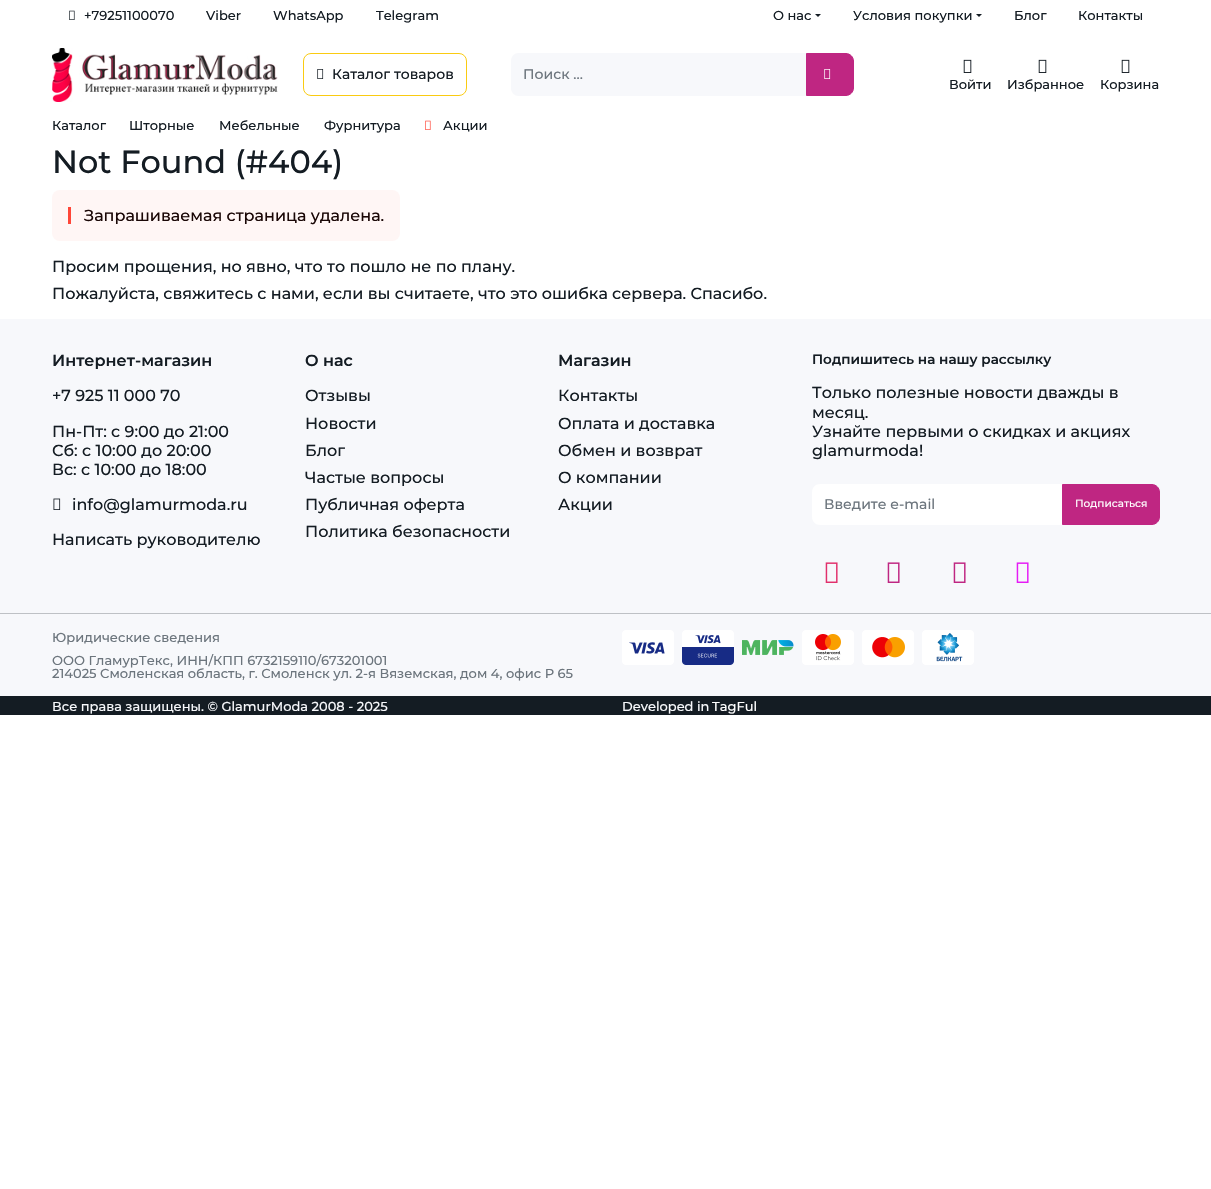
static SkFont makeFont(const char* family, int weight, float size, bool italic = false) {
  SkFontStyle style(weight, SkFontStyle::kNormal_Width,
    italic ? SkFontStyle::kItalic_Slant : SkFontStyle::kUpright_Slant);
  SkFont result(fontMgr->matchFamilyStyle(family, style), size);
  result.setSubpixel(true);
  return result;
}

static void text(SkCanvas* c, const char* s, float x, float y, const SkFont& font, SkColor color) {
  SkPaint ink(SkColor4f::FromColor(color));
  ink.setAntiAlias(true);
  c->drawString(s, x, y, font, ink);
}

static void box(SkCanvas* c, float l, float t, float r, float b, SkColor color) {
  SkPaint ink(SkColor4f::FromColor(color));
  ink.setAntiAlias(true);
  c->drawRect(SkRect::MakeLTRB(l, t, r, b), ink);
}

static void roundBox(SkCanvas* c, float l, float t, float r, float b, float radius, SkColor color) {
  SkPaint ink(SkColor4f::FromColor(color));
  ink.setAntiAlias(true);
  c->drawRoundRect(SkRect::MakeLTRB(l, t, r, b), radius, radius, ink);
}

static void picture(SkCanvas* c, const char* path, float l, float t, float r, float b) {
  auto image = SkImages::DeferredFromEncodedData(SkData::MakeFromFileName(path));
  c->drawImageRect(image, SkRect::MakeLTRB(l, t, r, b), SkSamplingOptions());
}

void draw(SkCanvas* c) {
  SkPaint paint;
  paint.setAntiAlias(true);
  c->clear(0xffffffff);
  picture(c, "img_01.png", 69, 10, 75, 20);
  SkFont face1 = makeFont("Montserrat", 500, 13);
  text(c, "+79251100070", 84, 20, face1, 0xff141c23);
  text(c, "Viber", 206, 20, face1, 0xff141c23);
  text(c, "WhatsApp", 273, 20, face1, 0xff141c23);
  text(c, "Telegram", 376, 20, face1, 0xff141c23);
  text(c, "О нас", 773, 20, face1, 0xff141c23);
  paint.setColor(0xff141c23);
  c->drawPath(SkPathBuilder().moveTo(815, 14).lineTo(821, 14).lineTo(818, 17).close().detach(), paint);
  text(c, "Условия покупки", 853, 20, face1, 0xff141c23);
  c->drawPath(SkPathBuilder().moveTo(976, 14).lineTo(982, 14).lineTo(979, 17).close().detach(), paint);
  text(c, "Блог", 1014, 20, face1, 0xff141c23);
  text(c, "Контакты", 1078, 20, face1, 0xff141c23);
  picture(c, "img_02.png", 52, 48, 278, 102);
  paint.setStyle(SkPaint::kStroke_Style);
  paint.setStrokeWidth(1);
  paint.setColor(0xfffacb12);
  c->drawRoundRect(SkRect::MakeLTRB(303.5f, 53.5f, 466.5f, 95.5f), 7.5f, 7.5f, paint);
  picture(c, "img_03.png", 317, 69, 324, 79);
  SkFont face2 = makeFont("Montserrat", 500, 14);
  text(c, "Каталог товаров", 332, 79, face2, 0xff141c23);
  paint.setStyle(SkPaint::kFill_Style);
  paint.setColor(0xfff7f8fb);
  c->drawPath(SkPathBuilder().moveTo(519, 53).lineTo(807, 53).lineTo(807, 96).lineTo(519, 96).cubicTo(514.5f, 96, 511, 92.5f, 511, 88).lineTo(511, 61).cubicTo(511, 56.5f, 514.5f, 53, 519, 53).close().detach(), paint);
  text(c, "Поиск ...", 523, 79, face2, 0xff6c757d);
  paint.setColor(0xffbf2682);
  c->drawPath(SkPathBuilder().moveTo(806.5f, 53.5f).lineTo(846, 53.5f).cubicTo(850, 53.5f, 853.5f, 57, 853.5f, 61).lineTo(853.5f, 88).cubicTo(853.5f, 92, 850, 95.5f, 846, 95.5f).lineTo(806.5f, 95.5f).close().detach(), paint);
  paint.setStyle(SkPaint::kStroke_Style);
  c->drawPath(SkPathBuilder().moveTo(806.5f, 53.5f).lineTo(846, 53.5f).cubicTo(850, 53.5f, 853.5f, 57, 853.5f, 61).lineTo(853.5f, 88).cubicTo(853.5f, 92, 850, 95.5f, 846, 95.5f).lineTo(806.5f, 95.5f).close().detach(), paint);
  picture(c, "img_04.png", 824, 69, 831, 79);
  picture(c, "img_05.png", 963, 59, 972, 73);
  text(c, "Войти", 949, 89, face1, 0xff141c23);
  picture(c, "img_05.png", 1038, 59, 1047, 73);
  text(c, "Избранное", 1007, 89, face1, 0xff141c23);
  picture(c, "img_05.png", 1121, 59, 1130, 73);
  text(c, "Корзина", 1100, 89, face1, 0xff141c23);
  text(c, "Каталог", 52, 130, face1, 0xff141c23);
  text(c, "Шторные", 129, 130, face1, 0xff141c23);
  text(c, "Мебельные", 219, 130, face1, 0xff141c23);
  text(c, "Фурнитура", 324, 130, face1, 0xff141c23);
  picture(c, "img_06.png", 425, 120, 431, 130);
  text(c, "Акции", 443, 130, face1, 0xff141c23);
  SkFont face3 = makeFont("Montserrat", 500, 32);
  text(c, "Not Found (#404)", 52, 173, face3, 0xff141c23);
  roundBox(c, 52, 190, 400, 241, 8, 0xfffff6f5);
  box(c, 68, 207, 71, 224, 0xffff4638);
  SkFont face4 = makeFont("Montserrat", 500, 16);
  text(c, "Запрашиваемая страница удалена.", 84, 221, face4, 0xff1a0706);
  text(c, "Просим прощения, но явно, что то пошло не по плану.", 52, 272, face4, 0xff141c23);
  text(c, "Пожалуйста, свяжитесь с нами, если вы считаете, что это ошибка сервера. Спасибо.", 52, 299, face4, 0xff141c23);
  box(c, 0, 319, 1211, 696, 0xfff7f8fb);
  SkFont face5 = makeFont("Montserrat", 600, 16);
  text(c, "Интернет-магазин", 52, 366, face5, 0xff141c23);
  text(c, "+7 925 11 000 70", 52, 401, face4, 0xff141c23);
  text(c, "Пн-Пт: c 9:00 до 21:00", 52, 437, face4, 0xff141c23);
  text(c, "Сб: c 10:00 до 20:00", 52, 456, face4, 0xff141c23);
  text(c, "Вс: c 10:00 до 18:00", 52, 475, face4, 0xff141c23);
  picture(c, "img_07.png", 53, 498, 61, 510);
  text(c, "info@glamurmoda.ru", 72, 510, face4, 0xff141c23);
  text(c, "Написать руководителю", 52, 545, face4, 0xff141c23);
  text(c, "О нас", 305, 366, face5, 0xff141c23);
  text(c, "Отзывы", 305, 401, face4, 0xff141c23);
  text(c, "Новости", 305, 429, face4, 0xff141c23);
  text(c, "Блог", 305, 456, face4, 0xff141c23);
  text(c, "Частые вопросы", 305, 483, face4, 0xff141c23);
  text(c, "Публичная оферта", 305, 510, face4, 0xff141c23);
  text(c, "Политика безопасности", 305, 537, face4, 0xff141c23);
  text(c, "Магазин", 558, 366, face5, 0xff141c23);
  text(c, "Контакты", 558, 401, face4, 0xff141c23);
  text(c, "Оплата и доставка", 558, 429, face4, 0xff141c23);
  text(c, "Обмен и возврат", 558, 456, face4, 0xff141c23);
  text(c, "О компании", 558, 483, face4, 0xff141c23);
  text(c, "Акции", 558, 510, face4, 0xff141c23);
  SkFont face6 = makeFont("Montserrat", 600, 13.6f);
  text(c, "Подпишитесь на нашу рассылку", 812, 364, face6, 0xff141c23);
  text(c, "Только полезные новости дважды в", 812, 398, face4, 0xff141c23);
  text(c, "месяц.", 812, 418, face4, 0xff141c23);
  text(c, "Узнайте первыми о скидках и акциях", 812, 437, face4, 0xff141c23);
  text(c, "glamurmoda!", 812, 456, face4, 0xff141c23);
  paint.setStyle(SkPaint::kFill_Style);
  paint.setColor(0xffffffff);
  c->drawPath(SkPathBuilder().moveTo(820, 484).lineTo(1063, 484).lineTo(1063, 525).lineTo(820, 525).cubicTo(815.5f, 525, 812, 521.5f, 812, 517).lineTo(812, 492).cubicTo(812, 487.5f, 815.5f, 484, 820, 484).close().detach(), paint);
  text(c, "Введите e-mail", 824, 509, face2, 0xff6c757d);
  paint.setColor(0xffbf2682);
  c->drawPath(SkPathBuilder().moveTo(1062.5f, 484.5f).lineTo(1152, 484.5f).cubicTo(1156, 484.5f, 1159.5f, 488, 1159.5f, 492).lineTo(1159.5f, 517).cubicTo(1159.5f, 521, 1156, 524.5f, 1152, 524.5f).lineTo(1062.5f, 524.5f).close().detach(), paint);
  paint.setStyle(SkPaint::kStroke_Style);
  c->drawPath(SkPathBuilder().moveTo(1062.5f, 484.5f).lineTo(1152, 484.5f).cubicTo(1156, 484.5f, 1159.5f, 488, 1159.5f, 492).lineTo(1159.5f, 517).cubicTo(1159.5f, 521, 1156, 524.5f, 1152, 524.5f).lineTo(1062.5f, 524.5f).close().detach(), paint);
  SkFont face7 = makeFont("Montserrat", 500, 10.5f);
  text(c, "Подписаться", 1075, 507, face7, 0xffffffff);
  picture(c, "img_08.png", 825, 562, 838, 583);
  picture(c, "img_09.png", 887, 562, 900, 583);
  picture(c, "img_09.png", 953, 562, 966, 583);
  picture(c, "img_10.png", 1016, 562, 1029, 583);
  box(c, 0, 613, 1211, 614, 0xffbec1c5);
  text(c, "Юридические сведения", 52, 642, face1, 0xff6c757d);
  text(c, "ООО ГламурТекс, ИНН/КПП 6732159110/673201001", 52, 665, face1, 0xff6c757d);
  text(c, "214025 Смоленская область, г. Смоленск ул. 2-я Вяземская, дом 4, офис Р 65", 52, 678, face1, 0xff6c757d);
  picture(c, "img_11.png", 622, 630, 674, 665);
  picture(c, "img_12.png", 682, 630, 734, 665);
  picture(c, "img_13.png", 742, 640, 794, 655);
  picture(c, "img_14.png", 802, 630, 854, 665);
  picture(c, "img_15.png", 862, 630, 914, 665);
  picture(c, "img_16.png", 922, 630, 974, 665);
  box(c, 0, 696, 1211, 715, 0xff141c23);
  text(c, "Все права защищены. © GlamurModa 2008 - 2025", 52, 711, face1, 0xfff7f8fb);
  text(c, "Developed in", 622, 711, face1, 0xfff7f8fb);
  text(c, "TagFul", 712, 711, face1, 0xffffffff);
}
